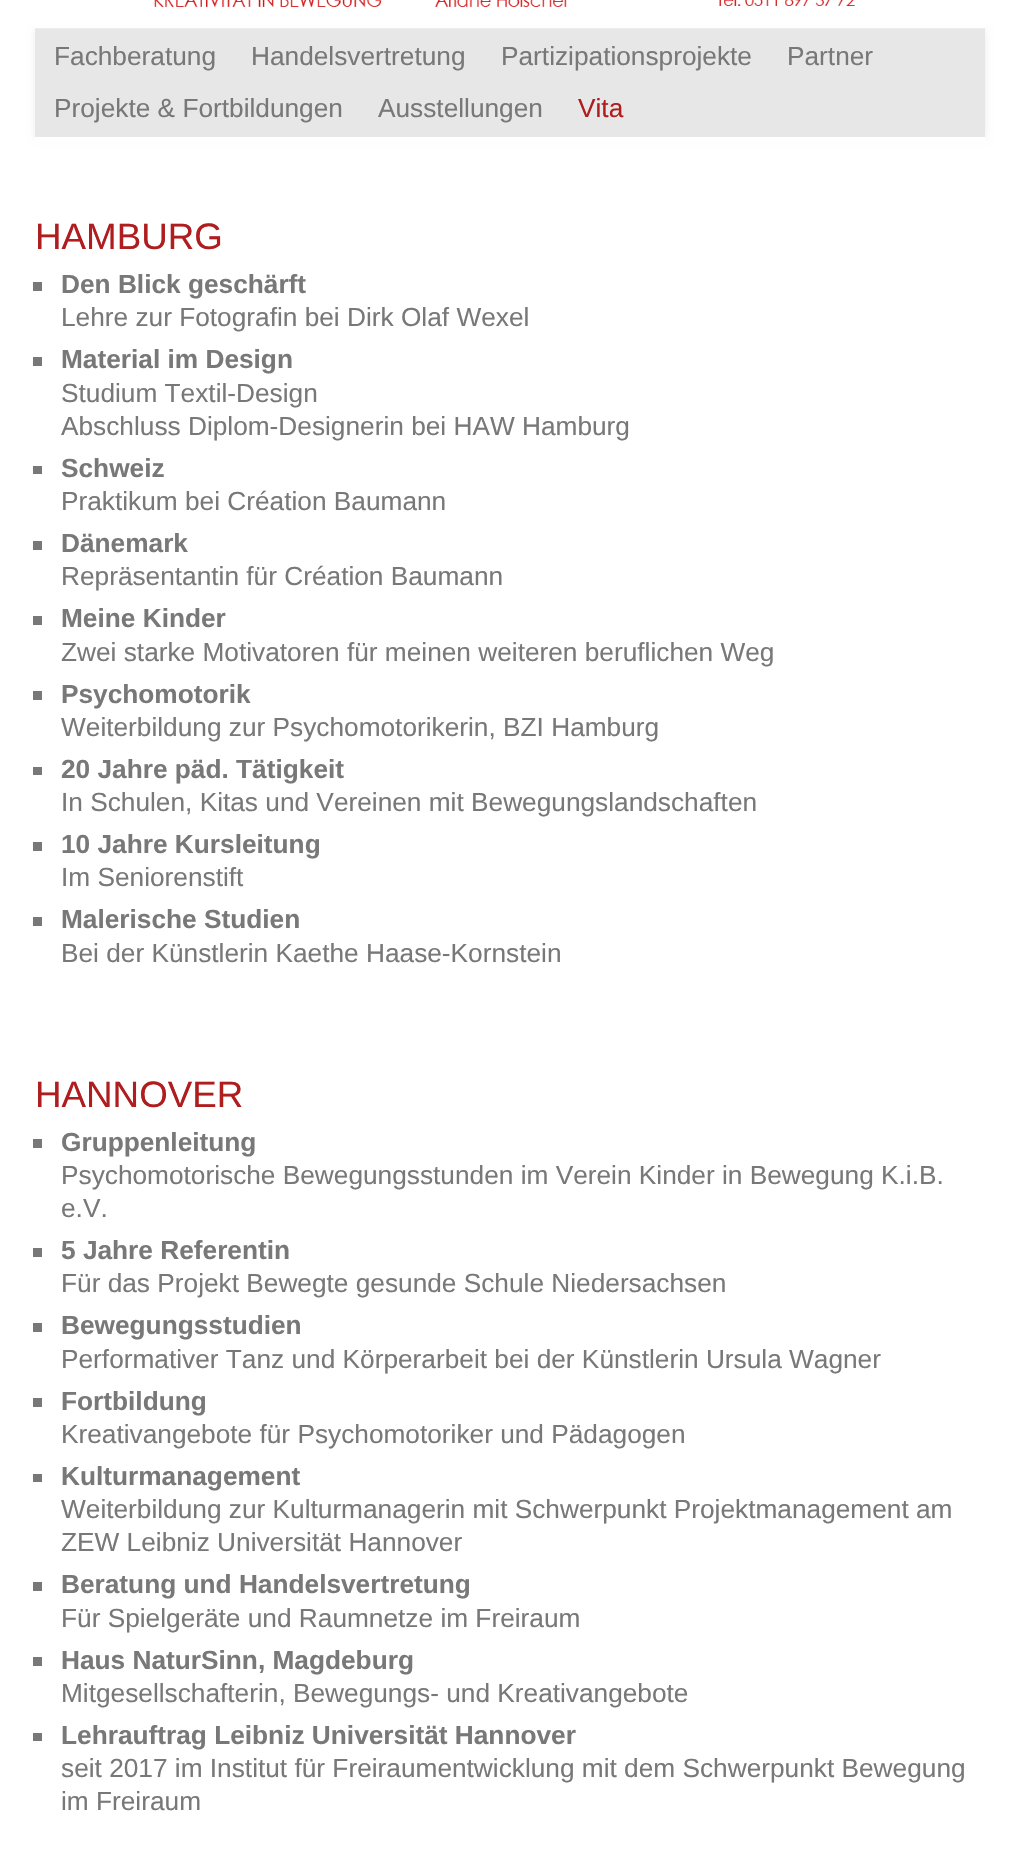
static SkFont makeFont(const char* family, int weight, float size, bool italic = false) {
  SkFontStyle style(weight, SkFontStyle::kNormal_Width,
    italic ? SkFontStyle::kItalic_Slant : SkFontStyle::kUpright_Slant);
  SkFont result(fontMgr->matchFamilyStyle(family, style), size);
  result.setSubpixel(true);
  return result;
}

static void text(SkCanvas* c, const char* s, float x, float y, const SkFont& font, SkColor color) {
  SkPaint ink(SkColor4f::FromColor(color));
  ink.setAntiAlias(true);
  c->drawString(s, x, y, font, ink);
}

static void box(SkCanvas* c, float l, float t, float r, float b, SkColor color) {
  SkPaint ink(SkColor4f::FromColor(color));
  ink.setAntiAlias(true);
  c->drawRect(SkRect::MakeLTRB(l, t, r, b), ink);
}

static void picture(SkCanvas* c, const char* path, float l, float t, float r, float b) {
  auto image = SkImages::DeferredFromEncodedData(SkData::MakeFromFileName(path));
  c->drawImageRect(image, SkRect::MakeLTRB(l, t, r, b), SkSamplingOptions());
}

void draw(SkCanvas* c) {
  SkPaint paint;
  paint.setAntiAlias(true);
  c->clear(0xffffffff);
  paint.setColor(0x12000000);
  paint.setMaskFilter(SkMaskFilter::MakeBlur(kNormal_SkBlurStyle, 3.5f));
  c->drawRect(SkRect::MakeLTRB(35, 30, 985, 138), paint);
  paint.setMaskFilter(nullptr);
  box(c, 35, 28, 985, 137, 0xffe7e7e7);
  picture(c, "img_01.png", 35, 0, 985, 29);
  SkFont face1 = makeFont("Liberation Sans", 400, 26.25f);
  text(c, "Fachberatung", 54, 65, face1, 0xff787878);
  text(c, "Handelsvertretung", 251, 65, face1, 0xff787878);
  text(c, "Partizipationsprojekte", 501, 65, face1, 0xff787878);
  text(c, "Partner", 787, 65, face1, 0xff787878);
  text(c, "Projekte & Fortbildungen", 54, 117, face1, 0xff787878);
  text(c, "Ausstellungen", 378, 117, face1, 0xff787878);
  text(c, "Vita", 578, 117, face1, 0xffaf1d1f);
  box(c, 35, 137, 985, 142, 0xffffffff);
  SkFont face2 = makeFont("Liberation Sans", 400, 36.75f);
  text(c, "HAMBURG", 35, 249, face2, 0xffaf1d1f);
  box(c, 33, 282, 42, 291, 0xff787878);
  SkFont face3 = makeFont("Liberation Sans", 700, 26.25f);
  text(c, "Den Blick geschärft", 61, 293, face3, 0xff787878);
  text(c, "Lehre zur Fotografin bei Dirk Olaf Wexel", 61, 326, face1, 0xff787878);
  box(c, 33, 357, 42, 366, 0xff787878);
  text(c, "Material im Design", 61, 368, face3, 0xff787878);
  text(c, "Studium Textil-Design", 61, 402, face1, 0xff787878);
  text(c, "Abschluss Diplom-Designerin bei HAW Hamburg", 61, 435, face1, 0xff787878);
  box(c, 33, 466, 42, 474, 0xff787878);
  text(c, "Schweiz", 61, 477, face3, 0xff787878);
  text(c, "Praktikum bei Création Baumann", 61, 510, face1, 0xff787878);
  box(c, 33, 541, 42, 550, 0xff787878);
  text(c, "Dänemark", 61, 552, face3, 0xff787878);
  text(c, "Repräsentantin für Création Baumann", 61, 585, face1, 0xff787878);
  box(c, 33, 616, 42, 625, 0xff787878);
  text(c, "Meine Kinder", 61, 627, face3, 0xff787878);
  text(c, "Zwei starke Motivatoren für meinen weiteren beruflichen Weg", 61, 661, face1, 0xff787878);
  box(c, 33, 691, 42, 700, 0xff787878);
  text(c, "Psychomotorik", 61, 703, face3, 0xff787878);
  text(c, "Weiterbildung zur Psychomotorikerin, BZI Hamburg", 61, 736, face1, 0xff787878);
  box(c, 33, 767, 42, 775, 0xff787878);
  text(c, "20 Jahre päd. Tätigkeit", 61, 778, face3, 0xff787878);
  text(c, "In Schulen, Kitas und Vereinen mit Bewegungslandschaften", 61, 811, face1, 0xff787878);
  box(c, 33, 842, 42, 851, 0xff787878);
  text(c, "10 Jahre Kursleitung", 61, 853, face3, 0xff787878);
  text(c, "Im Seniorenstift", 61, 886, face1, 0xff787878);
  box(c, 33, 917, 42, 926, 0xff787878);
  text(c, "Malerische Studien", 61, 928, face3, 0xff787878);
  text(c, "Bei der Künstlerin Kaethe Haase-Kornstein", 61, 962, face1, 0xff787878);
  text(c, "HANNOVER", 35, 1107, face2, 0xffaf1d1f);
  box(c, 33, 1139, 42, 1148, 0xff787878);
  text(c, "Gruppenleitung", 61, 1151, face3, 0xff787878);
  text(c, "Psychomotorische Bewegungsstunden im Verein Kinder in Bewegung K.i.B.", 61, 1184, face1, 0xff787878);
  text(c, "e.V.", 61, 1217, face1, 0xff787878);
  box(c, 33, 1248, 42, 1257, 0xff787878);
  text(c, "5 Jahre Referentin", 61, 1259, face3, 0xff787878);
  text(c, "Für das Projekt Bewegte gesunde Schule Niedersachsen", 61, 1292, face1, 0xff787878);
  box(c, 33, 1323, 42, 1332, 0xff787878);
  text(c, "Bewegungsstudien", 61, 1334, face3, 0xff787878);
  text(c, "Performativer Tanz und Körperarbeit bei der Künstlerin Ursula Wagner", 61, 1368, face1, 0xff787878);
  box(c, 33, 1398, 42, 1407, 0xff787878);
  text(c, "Fortbildung", 61, 1410, face3, 0xff787878);
  text(c, "Kreativangebote für Psychomotoriker und Pädagogen", 61, 1443, face1, 0xff787878);
  box(c, 33, 1474, 42, 1482, 0xff787878);
  text(c, "Kulturmanagement", 61, 1485, face3, 0xff787878);
  text(c, "Weiterbildung zur Kulturmanagerin mit Schwerpunkt Projektmanagement am", 61, 1518, face1, 0xff787878);
  text(c, "ZEW Leibniz Universität Hannover", 61, 1551, face1, 0xff787878);
  box(c, 33, 1582, 42, 1591, 0xff787878);
  text(c, "Beratung und Handelsvertretung", 61, 1593, face3, 0xff787878);
  text(c, "Für Spielgeräte und Raumnetze im Freiraum", 61, 1627, face1, 0xff787878);
  box(c, 33, 1657, 42, 1666, 0xff787878);
  text(c, "Haus NaturSinn, Magdeburg", 61, 1669, face3, 0xff787878);
  text(c, "Mitgesellschafterin, Bewegungs- und Kreativangebote", 61, 1702, face1, 0xff787878);
  box(c, 33, 1733, 42, 1741, 0xff787878);
  text(c, "Lehrauftrag Leibniz Universität Hannover", 61, 1744, face3, 0xff787878);
  text(c, "seit 2017 im Institut für Freiraumentwicklung mit dem Schwerpunkt Bewegung", 61, 1777, face1, 0xff787878);
  text(c, "im Freiraum", 61, 1810, face1, 0xff787878);
}
